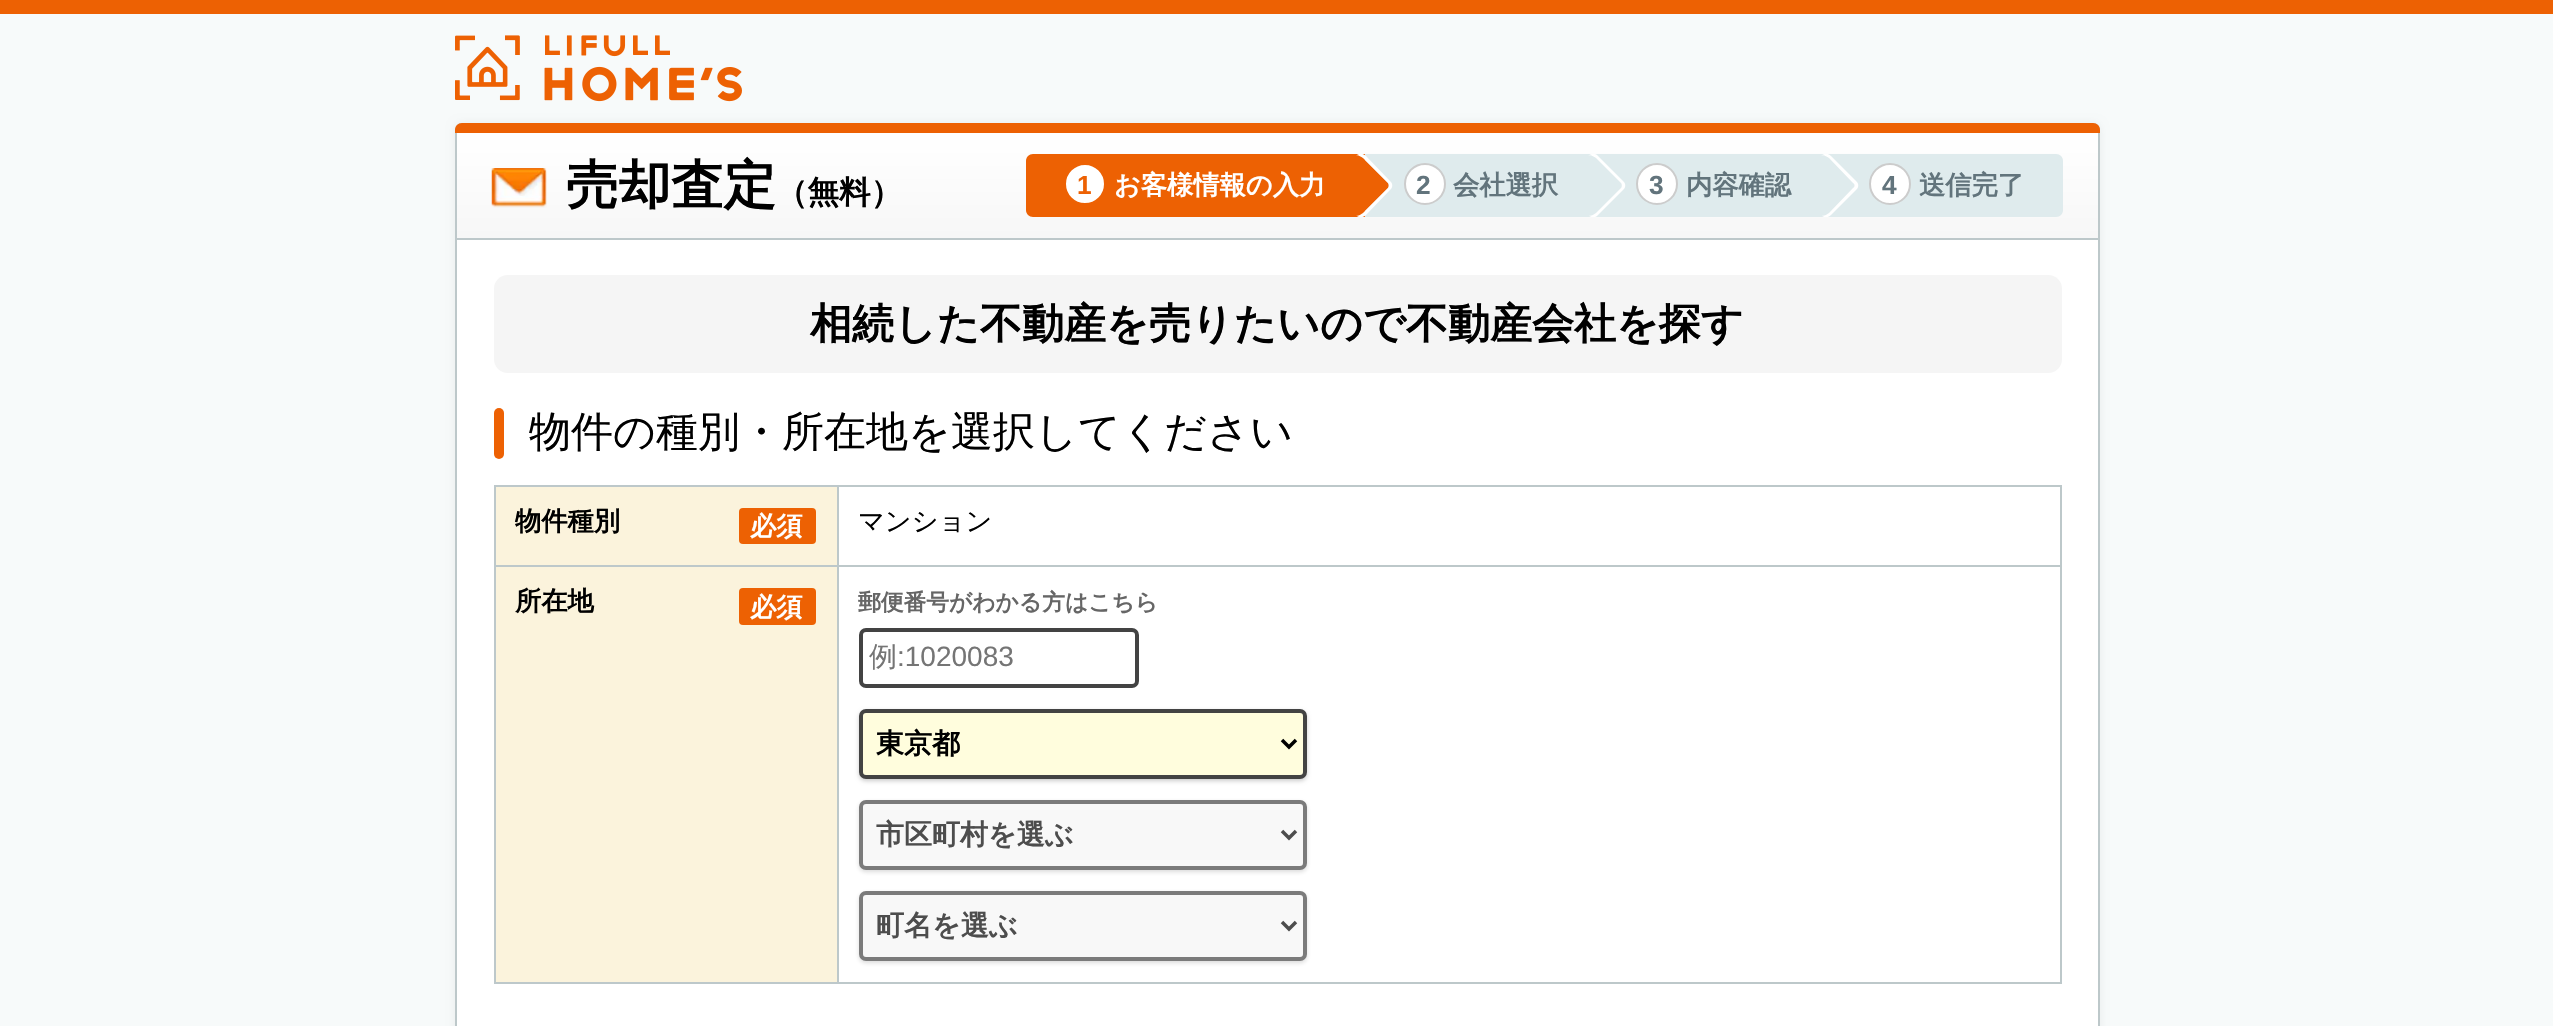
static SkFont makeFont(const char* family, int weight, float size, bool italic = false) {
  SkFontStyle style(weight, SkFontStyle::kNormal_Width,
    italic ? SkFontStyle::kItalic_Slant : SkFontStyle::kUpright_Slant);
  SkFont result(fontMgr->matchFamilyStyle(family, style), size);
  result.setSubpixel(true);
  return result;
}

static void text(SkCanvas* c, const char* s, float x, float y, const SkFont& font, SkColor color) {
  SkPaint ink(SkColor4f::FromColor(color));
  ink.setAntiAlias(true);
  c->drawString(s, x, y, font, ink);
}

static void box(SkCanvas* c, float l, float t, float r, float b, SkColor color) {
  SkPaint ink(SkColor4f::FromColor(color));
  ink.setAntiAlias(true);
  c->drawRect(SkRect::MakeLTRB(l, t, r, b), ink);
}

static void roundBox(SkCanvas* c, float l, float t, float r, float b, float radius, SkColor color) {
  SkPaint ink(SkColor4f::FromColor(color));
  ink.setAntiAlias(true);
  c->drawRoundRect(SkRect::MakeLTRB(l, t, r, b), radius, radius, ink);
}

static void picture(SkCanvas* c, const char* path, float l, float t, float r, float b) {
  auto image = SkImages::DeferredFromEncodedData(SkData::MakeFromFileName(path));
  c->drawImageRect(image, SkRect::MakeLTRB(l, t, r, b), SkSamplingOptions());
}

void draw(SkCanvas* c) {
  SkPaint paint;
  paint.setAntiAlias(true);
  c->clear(0xfff7fafa);
  box(c, 0, 0, 2553, 14, 0xffed6103);
  picture(c, "img_01.png", 455, 35, 742, 102);
  paint.setColor(0xffe8ebeb);
  paint.setMaskFilter(SkMaskFilter::MakeBlur(kNormal_SkBlurStyle, 4.5f));
  c->drawRoundRect(SkRect::MakeLTRB(455, 123, 2100, 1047), 7, 7, paint);
  paint.setMaskFilter(nullptr);
  paint.setColor(0xffffffff);
  c->drawRoundRect(SkRect::MakeLTRB(456, 124, 2099, 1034), 6, 6, paint);
  paint.setStyle(SkPaint::kStroke_Style);
  paint.setStrokeWidth(2);
  paint.setColor(0xffbdc8ca);
  c->drawRoundRect(SkRect::MakeLTRB(456, 124, 2099, 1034), 6, 6, paint);
  paint.setStyle(SkPaint::kFill_Style);
  paint.setColor(0xffed6103);
  c->drawPath(SkPathBuilder().moveTo(462, 123).lineTo(2093, 123).cubicTo(2097, 123, 2100, 126, 2100, 130).lineTo(2100, 133).lineTo(455, 133).lineTo(455, 130).cubicTo(455, 126, 458, 123, 462, 123).close().detach(), paint);
  {
    const SkColor colors[] = {0xffffffff, 0xfff7f7f7};
    const float stops[] = {0, 1};
    const SkPoint ends[] = {{1278, 133}, {1278, 238}};
    paint.setShader(SkGradientShader::MakeLinear(ends, colors, stops, 2, SkTileMode::kClamp));
    paint.setAlpha(255);
  }
  c->drawPath(SkPathBuilder().moveTo(464, 133).lineTo(2091, 133).cubicTo(2095, 133, 2098, 136, 2098, 140).lineTo(2098, 238).lineTo(457, 238).lineTo(457, 140).cubicTo(457, 136, 460, 133, 464, 133).close().detach(), paint);
  box(c, 457, 238, 2098, 240, 0xffbdc8ca);
  picture(c, "img_02.png", 491, 168, 547, 208);
  SkFont face1 = makeFont("WenQuanYi Zen Hei", 700, 52.5f);
  text(c, "売却査定", 566, 203, face1, 0xff000000);
  SkFont face2 = makeFont("WenQuanYi Zen Hei", 700, 31.5f);
  text(c, "（無料）", 776, 203, face2, 0xff000000);
  paint.setShader(nullptr);
  paint.setColor(0xffed6103);
  c->drawPath(SkPathBuilder().moveTo(1033, 154).lineTo(1365, 154).lineTo(1365, 217).lineTo(1033, 217).cubicTo(1029, 217, 1026, 214, 1026, 210).lineTo(1026, 161).cubicTo(1026, 157, 1029, 154, 1033, 154).close().detach(), paint);
  paint.setColor(0xffffffff);
  c->drawCircle(1085, 184, 20, paint);
  paint.setStyle(SkPaint::kStroke_Style);
  paint.setColor(0xffed6103);
  c->drawCircle(1085, 184, 20, paint);
  SkFont face3 = makeFont("Liberation Sans", 700, 26.25f);
  text(c, "1", 1077, 194, face3, 0xffed6103);
  SkFont face4 = makeFont("WenQuanYi Zen Hei", 700, 26.25f);
  text(c, "お客様情報の入力", 1114, 194, face4, 0xffffffff);
  box(c, 1365, 154, 1831, 217, 0xffdfebed);
  paint.setStyle(SkPaint::kFill_Style);
  c->drawPath(SkPathBuilder().moveTo(1331, 181).lineTo(1356, 156).cubicTo(1357, 154, 1360, 156, 1363, 158).lineTo(1388, 183).cubicTo(1389, 184, 1389, 187, 1388, 188).lineTo(1363, 213).cubicTo(1360, 215, 1357, 217, 1356, 215).lineTo(1331, 190).cubicTo(1328, 188, 1328, 183, 1331, 181).close().detach(), paint);
  c->save();
  c->clipRect(SkRect::MakeLTRB(1026, 154, 2063, 217));
  paint.setColor(0xffffffff);
  c->drawPath(SkPathBuilder(SkPathFillType::kEvenOdd).moveTo(1331, 181).lineTo(1356, 156).cubicTo(1358, 153, 1363, 153, 1366, 156).lineTo(1390, 181).cubicTo(1393, 183, 1393, 188, 1390, 190).lineTo(1366, 215).cubicTo(1363, 218, 1358, 218, 1356, 215).lineTo(1331, 190).cubicTo(1328, 188, 1328, 183, 1331, 181).close().moveTo(1331, 181).lineTo(1356, 156).cubicTo(1357, 154, 1360, 156, 1363, 158).lineTo(1388, 183).cubicTo(1389, 184, 1389, 187, 1388, 188).lineTo(1363, 213).cubicTo(1360, 215, 1357, 217, 1356, 215).lineTo(1331, 190).cubicTo(1328, 188, 1328, 183, 1331, 181).close().detach(), paint);
  c->restore();
  c->drawCircle(1425, 184, 20, paint);
  paint.setStyle(SkPaint::kStroke_Style);
  paint.setColor(0xffcccccc);
  c->drawCircle(1425, 184, 20, paint);
  text(c, "2", 1416, 194, face3, 0xff62747c);
  text(c, "会社選択", 1453, 194, face4, 0xff62747c);
  c->save();
  c->clipRect(SkRect::MakeLTRB(1026, 154, 2063, 217));
  paint.setStyle(SkPaint::kFill_Style);
  paint.setColor(0xffffffff);
  c->drawPath(SkPathBuilder(SkPathFillType::kEvenOdd).moveTo(1564, 181).lineTo(1588, 156).cubicTo(1591, 153, 1596, 153, 1598, 156).lineTo(1623, 181).cubicTo(1626, 183, 1626, 188, 1623, 190).lineTo(1598, 215).cubicTo(1596, 218, 1591, 218, 1588, 215).lineTo(1564, 190).cubicTo(1561, 188, 1561, 183, 1564, 181).close().moveTo(1564, 181).lineTo(1588, 156).cubicTo(1590, 154, 1593, 156, 1596, 158).lineTo(1621, 183).cubicTo(1622, 184, 1622, 187, 1621, 188).lineTo(1596, 213).cubicTo(1593, 215, 1590, 217, 1588, 215).lineTo(1564, 190).cubicTo(1561, 188, 1561, 183, 1564, 181).close().detach(), paint);
  c->restore();
  c->drawCircle(1657, 184, 20, paint);
  paint.setStyle(SkPaint::kStroke_Style);
  paint.setColor(0xffcccccc);
  c->drawCircle(1657, 184, 20, paint);
  text(c, "3", 1649, 194, face3, 0xff62747c);
  text(c, "内容確認", 1686, 194, face4, 0xff62747c);
  paint.setStyle(SkPaint::kFill_Style);
  paint.setColor(0xffdfebed);
  c->drawPath(SkPathBuilder().moveTo(1831, 154).lineTo(2056, 154).cubicTo(2060, 154, 2063, 157, 2063, 161).lineTo(2063, 210).cubicTo(2063, 214, 2060, 217, 2056, 217).lineTo(1831, 217).close().detach(), paint);
  c->save();
  c->clipRect(SkRect::MakeLTRB(1026, 154, 2063, 217));
  paint.setColor(0xffffffff);
  c->drawPath(SkPathBuilder(SkPathFillType::kEvenOdd).moveTo(1796, 181).lineTo(1821, 156).cubicTo(1824, 153, 1828, 153, 1831, 156).lineTo(1856, 181).cubicTo(1859, 183, 1859, 188, 1856, 190).lineTo(1831, 215).cubicTo(1828, 218, 1824, 218, 1821, 215).lineTo(1796, 190).cubicTo(1794, 188, 1794, 183, 1796, 181).close().moveTo(1796, 181).lineTo(1821, 156).cubicTo(1823, 154, 1826, 156, 1829, 158).lineTo(1853, 183).cubicTo(1855, 184, 1855, 187, 1853, 188).lineTo(1829, 213).cubicTo(1826, 215, 1823, 217, 1821, 215).lineTo(1796, 190).cubicTo(1794, 188, 1794, 183, 1796, 181).close().detach(), paint);
  c->restore();
  c->drawCircle(1890, 184, 20, paint);
  paint.setStyle(SkPaint::kStroke_Style);
  paint.setColor(0xffcccccc);
  c->drawCircle(1890, 184, 20, paint);
  text(c, "4", 1882, 194, face3, 0xff62747c);
  text(c, "送信完了", 1919, 194, face4, 0xff62747c);
  roundBox(c, 494, 275, 2062, 373, 14, 0xfff5f5f5);
  SkFont face5 = makeFont("WenQuanYi Zen Hei", 700, 42);
  text(c, "相続した不動産を売りたいので不動産会社を探す", 810, 338, face5, 0xff000000);
  roundBox(c, 494, 408, 504, 459, 5, 0xffed6103);
  SkFont face6 = makeFont("WenQuanYi Zen Hei", 500, 42);
  text(c, "物件の種別・所在地を選択してください", 529, 446, face6, 0xff000000);
  box(c, 494, 485, 2062, 487, 0xffbdc8ca);
  box(c, 494, 565, 2062, 567, 0xffbdc8ca);
  box(c, 2060, 565, 2062, 984, 0xffbdc8ca);
  box(c, 2060, 485, 2062, 567, 0xffbdc8ca);
  box(c, 494, 982, 2062, 984, 0xffbdc8ca);
  box(c, 494, 565, 496, 984, 0xffbdc8ca);
  box(c, 494, 485, 496, 567, 0xffbdc8ca);
  box(c, 496, 487, 837, 565, 0xfffbf3dc);
  text(c, "物件種別", 515, 530, face4, 0xff000000);
  roundBox(c, 739, 508, 816, 544, 4, 0xffed6103);
  text(c, "必須", 750, 535, face4, 0xffffffff);
  SkFont face7 = makeFont("WenQuanYi Zen Hei", 500, 26.25f);
  text(c, "マンション", 858, 530, face7, 0xff000000);
  box(c, 496, 567, 837, 982, 0xfffbf3dc);
  box(c, 837, 485, 839, 984, 0xffbdc8ca);
  text(c, "所在地", 515, 610, face4, 0xff000000);
  roundBox(c, 739, 588, 816, 625, 4, 0xffed6103);
  text(c, "必須", 750, 616, face4, 0xffffffff);
  SkFont face8 = makeFont("WenQuanYi Zen Hei", 700, 22.75f);
  text(c, "郵便番号がわかる方はこちら", 858, 610, face8, 0xff666666);
  paint.setStrokeWidth(4);
  paint.setColor(0xff434343);
  c->drawRoundRect(SkRect::MakeLTRB(861, 630, 1137, 686), 5, 5, paint);
  SkFont face9 = makeFont("WenQuanYi Zen Hei", 500, 28);
  text(c, "例", 869, 666, face9, 0xff757575);
  SkFont face10 = makeFont("Liberation Sans", 400, 28);
  text(c, ":1020083", 897, 666, face10, 0xff757575);
  paint.setStyle(SkPaint::kFill_Style);
  paint.setColor(0x33000000);
  paint.setMaskFilter(SkMaskFilter::MakeBlur(kNormal_SkBlurStyle, 2));
  c->drawRoundRect(SkRect::MakeLTRB(859, 711, 1307, 781), 7, 7, paint);
  paint.setMaskFilter(nullptr);
  paint.setColor(0xfffffddd);
  c->drawRoundRect(SkRect::MakeLTRB(861, 711, 1305, 777), 5, 5, paint);
  paint.setStyle(SkPaint::kStroke_Style);
  paint.setColor(0xff434343);
  c->drawRoundRect(SkRect::MakeLTRB(861, 711, 1305, 777), 5, 5, paint);
  paint.setStrokeWidth(3.5f);
  paint.setColor(0xff000000);
  c->drawPath(SkPathBuilder().moveTo(1282, 740).lineTo(1289, 747).lineTo(1296, 740).detach(), paint);
  SkFont face11 = makeFont("WenQuanYi Zen Hei", 700, 28);
  text(c, "東京都", 876, 753, face11, 0xff000000);
  paint.setStyle(SkPaint::kFill_Style);
  paint.setColor(0x334d4d4d);
  paint.setMaskFilter(SkMaskFilter::MakeBlur(kNormal_SkBlurStyle, 2));
  c->drawRoundRect(SkRect::MakeLTRB(859, 802, 1307, 872), 7, 7, paint);
  paint.setMaskFilter(nullptr);
  paint.setColor(0xfff8f8f8);
  c->drawRoundRect(SkRect::MakeLTRB(861, 802, 1305, 868), 5, 5, paint);
  paint.setStyle(SkPaint::kStroke_Style);
  paint.setStrokeWidth(4);
  paint.setColor(0xff7b7b7b);
  c->drawRoundRect(SkRect::MakeLTRB(861, 802, 1305, 868), 5, 5, paint);
  paint.setStrokeWidth(3.5f);
  paint.setColor(0xff4d4d4d);
  c->drawPath(SkPathBuilder().moveTo(1282, 831).lineTo(1289, 838).lineTo(1296, 831).detach(), paint);
  text(c, "市区町村を選ぶ", 876, 844, face11, 0xff4d4d4d);
  paint.setStyle(SkPaint::kFill_Style);
  paint.setColor(0x334d4d4d);
  paint.setMaskFilter(SkMaskFilter::MakeBlur(kNormal_SkBlurStyle, 2));
  c->drawRoundRect(SkRect::MakeLTRB(859, 893, 1307, 963), 7, 7, paint);
  paint.setMaskFilter(nullptr);
  paint.setColor(0xfff8f8f8);
  c->drawRoundRect(SkRect::MakeLTRB(861, 893, 1305, 959), 5, 5, paint);
  paint.setStyle(SkPaint::kStroke_Style);
  paint.setStrokeWidth(4);
  paint.setColor(0xff7b7b7b);
  c->drawRoundRect(SkRect::MakeLTRB(861, 893, 1305, 959), 5, 5, paint);
  paint.setStrokeWidth(3.5f);
  paint.setColor(0xff4d4d4d);
  c->drawPath(SkPathBuilder().moveTo(1282, 922).lineTo(1289, 929).lineTo(1296, 922).detach(), paint);
  text(c, "町名を選ぶ", 876, 935, face11, 0xff4d4d4d);
}
